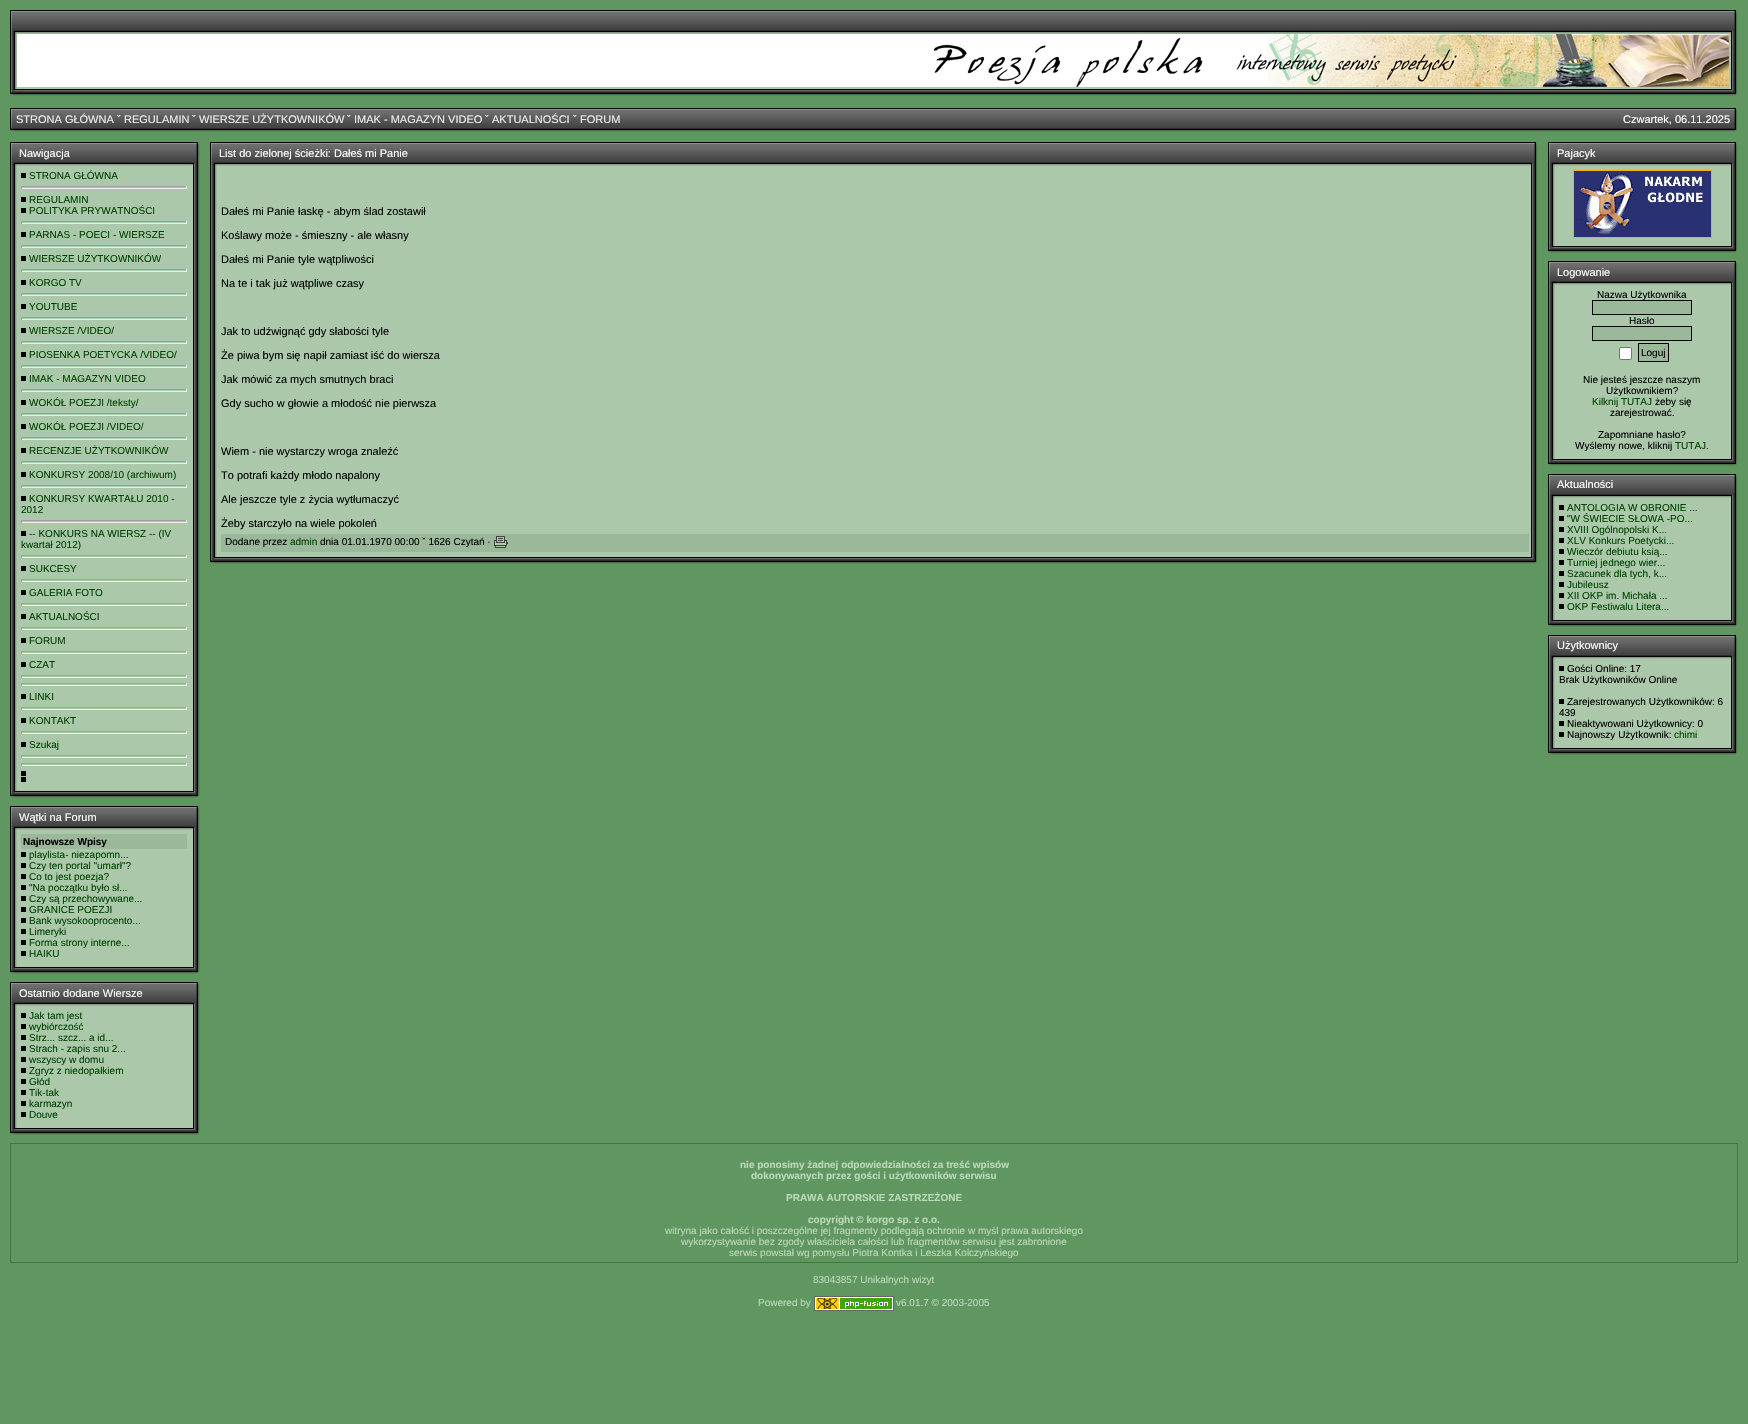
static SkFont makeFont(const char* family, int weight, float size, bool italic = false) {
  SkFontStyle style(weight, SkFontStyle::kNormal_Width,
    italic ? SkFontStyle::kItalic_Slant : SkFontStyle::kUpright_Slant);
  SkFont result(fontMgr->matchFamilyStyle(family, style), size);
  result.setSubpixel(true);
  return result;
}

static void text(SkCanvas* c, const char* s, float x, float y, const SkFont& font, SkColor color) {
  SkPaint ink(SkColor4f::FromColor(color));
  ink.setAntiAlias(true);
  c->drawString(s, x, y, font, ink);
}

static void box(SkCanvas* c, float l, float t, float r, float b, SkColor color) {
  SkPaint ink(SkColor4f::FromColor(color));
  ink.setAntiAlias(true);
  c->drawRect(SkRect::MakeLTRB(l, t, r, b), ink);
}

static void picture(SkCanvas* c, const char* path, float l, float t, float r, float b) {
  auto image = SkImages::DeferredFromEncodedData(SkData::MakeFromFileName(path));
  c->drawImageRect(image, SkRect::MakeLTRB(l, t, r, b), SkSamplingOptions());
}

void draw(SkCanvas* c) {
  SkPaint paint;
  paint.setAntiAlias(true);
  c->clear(0xff609760);
  picture(c, "img_01.png", 10, 10, 17, 34);
  picture(c, "img_02.png", 17, 10, 1729, 34);
  picture(c, "img_03.png", 1729, 10, 1738, 34);
  picture(c, "img_04.png", 10, 34, 17, 87);
  box(c, 17, 34, 933, 87, 0xffffffff);
  picture(c, "img_05.png", 933, 34, 1729, 87);
  picture(c, "img_06.png", 1729, 34, 1738, 87);
  picture(c, "img_07.png", 10, 87, 17, 96);
  picture(c, "img_08.png", 17, 87, 1729, 96);
  picture(c, "img_09.png", 1729, 87, 1738, 96);
  picture(c, "img_10.png", 10, 108, 14, 132);
  picture(c, "img_11.png", 14, 108, 1467, 132);
  SkFont face1 = makeFont("Liberation Sans", 400, 11);
  text(c, "STRONA GŁÓWNA", 16, 123, face1, 0xffeeeeee);
  text(c, "ˇ", 117, 123, face1, 0xffffffff);
  text(c, "REGULAMIN", 124, 123, face1, 0xffeeeeee);
  text(c, "ˇ", 192, 123, face1, 0xffffffff);
  text(c, "WIERSZE UŻYTKOWNIKÓW", 199, 123, face1, 0xffeeeeee);
  text(c, "ˇ", 347, 123, face1, 0xffffffff);
  text(c, "IMAK - MAGAZYN VIDEO", 354, 123, face1, 0xffeeeeee);
  text(c, "ˇ", 485, 123, face1, 0xffffffff);
  text(c, "AKTUALNOŚCI", 492, 123, face1, 0xffeeeeee);
  text(c, "ˇ", 573, 123, face1, 0xffffffff);
  text(c, "FORUM", 580, 123, face1, 0xffeeeeee);
  picture(c, "img_12.png", 1467, 108, 1732, 132);
  text(c, "Czwartek, 06.11.2025", 1623, 123, face1, 0xffffffff);
  picture(c, "img_13.png", 1732, 108, 1738, 132);
  picture(c, "img_01.png", 10, 142, 17, 166);
  picture(c, "img_14.png", 17, 142, 191, 166);
  text(c, "Nawigacja", 19, 157, face1, 0xffffffff);
  picture(c, "img_03.png", 191, 142, 200, 166);
  picture(c, "img_15.png", 10, 166, 17, 789);
  box(c, 17, 166, 191, 789, 0xffabc8ab);
  box(c, 21, 173, 26, 178, 0xff000000);
  SkFont face2 = makeFont("Liberation Sans", 400, 10);
  text(c, "STRONA GŁÓWNA", 29, 179, face2, 0xff004400);
  box(c, 21, 186, 187, 187, 0xff9f9f9f);
  box(c, 186, 186, 187, 189, 0xffeeeeee);
  box(c, 21, 188, 187, 189, 0xffeeeeee);
  box(c, 21, 186, 22, 189, 0xff9f9f9f);
  box(c, 21, 197, 26, 202, 0xff000000);
  text(c, "REGULAMIN", 29, 203, face2, 0xff004400);
  box(c, 21, 208, 26, 213, 0xff000000);
  text(c, "POLITYKA PRYWATNOŚCI", 29, 214, face2, 0xff004400);
  box(c, 21, 221, 187, 222, 0xff9f9f9f);
  box(c, 186, 221, 187, 224, 0xffeeeeee);
  box(c, 21, 223, 187, 224, 0xffeeeeee);
  box(c, 21, 221, 22, 224, 0xff9f9f9f);
  box(c, 21, 232, 26, 237, 0xff000000);
  text(c, "PARNAS - POECI - WIERSZE", 29, 238, face2, 0xff004400);
  box(c, 21, 245, 187, 246, 0xff9f9f9f);
  box(c, 186, 245, 187, 248, 0xffeeeeee);
  box(c, 21, 247, 187, 248, 0xffeeeeee);
  box(c, 21, 245, 22, 248, 0xff9f9f9f);
  box(c, 21, 256, 26, 261, 0xff000000);
  text(c, "WIERSZE UŻYTKOWNIKÓW", 29, 262, face2, 0xff004400);
  box(c, 21, 269, 187, 270, 0xff9f9f9f);
  box(c, 186, 269, 187, 272, 0xffeeeeee);
  box(c, 21, 271, 187, 272, 0xffeeeeee);
  box(c, 21, 269, 22, 272, 0xff9f9f9f);
  box(c, 21, 280, 26, 285, 0xff000000);
  text(c, "KORGO TV", 29, 286, face2, 0xff004400);
  box(c, 21, 293, 187, 294, 0xff9f9f9f);
  box(c, 186, 293, 187, 296, 0xffeeeeee);
  box(c, 21, 295, 187, 296, 0xffeeeeee);
  box(c, 21, 293, 22, 296, 0xff9f9f9f);
  box(c, 21, 304, 26, 309, 0xff000000);
  text(c, "YOUTUBE", 29, 310, face2, 0xff004400);
  box(c, 21, 317, 187, 318, 0xff9f9f9f);
  box(c, 186, 317, 187, 320, 0xffeeeeee);
  box(c, 21, 319, 187, 320, 0xffeeeeee);
  box(c, 21, 317, 22, 320, 0xff9f9f9f);
  box(c, 21, 328, 26, 333, 0xff000000);
  text(c, "WIERSZE /VIDEO/", 29, 334, face2, 0xff004400);
  box(c, 21, 341, 187, 342, 0xff9f9f9f);
  box(c, 186, 341, 187, 344, 0xffeeeeee);
  box(c, 21, 343, 187, 344, 0xffeeeeee);
  box(c, 21, 341, 22, 344, 0xff9f9f9f);
  box(c, 21, 352, 26, 357, 0xff000000);
  text(c, "PIOSENKA POETYCKA /VIDEO/", 29, 358, face2, 0xff004400);
  box(c, 21, 365, 187, 366, 0xff9f9f9f);
  box(c, 186, 365, 187, 368, 0xffeeeeee);
  box(c, 21, 367, 187, 368, 0xffeeeeee);
  box(c, 21, 365, 22, 368, 0xff9f9f9f);
  box(c, 21, 376, 26, 381, 0xff000000);
  text(c, "IMAK - MAGAZYN VIDEO", 29, 382, face2, 0xff004400);
  box(c, 21, 389, 187, 390, 0xff9f9f9f);
  box(c, 186, 389, 187, 392, 0xffeeeeee);
  box(c, 21, 391, 187, 392, 0xffeeeeee);
  box(c, 21, 389, 22, 392, 0xff9f9f9f);
  box(c, 21, 400, 26, 405, 0xff000000);
  text(c, "WOKÓŁ POEZJI /teksty/", 29, 406, face2, 0xff004400);
  box(c, 21, 413, 187, 414, 0xff9f9f9f);
  box(c, 186, 413, 187, 416, 0xffeeeeee);
  box(c, 21, 415, 187, 416, 0xffeeeeee);
  box(c, 21, 413, 22, 416, 0xff9f9f9f);
  box(c, 21, 424, 26, 429, 0xff000000);
  text(c, "WOKÓŁ POEZJI /VIDEO/", 29, 430, face2, 0xff004400);
  box(c, 21, 437, 187, 438, 0xff9f9f9f);
  box(c, 186, 437, 187, 440, 0xffeeeeee);
  box(c, 21, 439, 187, 440, 0xffeeeeee);
  box(c, 21, 437, 22, 440, 0xff9f9f9f);
  box(c, 21, 448, 26, 453, 0xff000000);
  text(c, "RECENZJE UŻYTKOWNIKÓW", 29, 454, face2, 0xff004400);
  box(c, 21, 461, 187, 462, 0xff9f9f9f);
  box(c, 186, 461, 187, 464, 0xffeeeeee);
  box(c, 21, 463, 187, 464, 0xffeeeeee);
  box(c, 21, 461, 22, 464, 0xff9f9f9f);
  box(c, 21, 472, 26, 477, 0xff000000);
  text(c, "KONKURSY 2008/10 (archiwum)", 29, 478, face2, 0xff004400);
  box(c, 21, 485, 187, 486, 0xff9f9f9f);
  box(c, 186, 485, 187, 488, 0xffeeeeee);
  box(c, 21, 487, 187, 488, 0xffeeeeee);
  box(c, 21, 485, 22, 488, 0xff9f9f9f);
  box(c, 21, 496, 26, 501, 0xff000000);
  text(c, "KONKURSY KWARTAŁU 2010 -", 29, 502, face2, 0xff004400);
  text(c, "2012", 21, 513, face2, 0xff004400);
  box(c, 21, 520, 187, 521, 0xff9f9f9f);
  box(c, 186, 520, 187, 523, 0xffeeeeee);
  box(c, 21, 522, 187, 523, 0xffeeeeee);
  box(c, 21, 520, 22, 523, 0xff9f9f9f);
  box(c, 21, 531, 26, 536, 0xff000000);
  text(c, "-- KONKURS NA WIERSZ -- (IV", 29, 537, face2, 0xff004400);
  text(c, "kwartał 2012)", 21, 548, face2, 0xff004400);
  box(c, 21, 555, 187, 556, 0xff9f9f9f);
  box(c, 186, 555, 187, 558, 0xffeeeeee);
  box(c, 21, 557, 187, 558, 0xffeeeeee);
  box(c, 21, 555, 22, 558, 0xff9f9f9f);
  box(c, 21, 566, 26, 571, 0xff000000);
  text(c, "SUKCESY", 29, 572, face2, 0xff004400);
  box(c, 21, 579, 187, 580, 0xff9f9f9f);
  box(c, 186, 579, 187, 582, 0xffeeeeee);
  box(c, 21, 581, 187, 582, 0xffeeeeee);
  box(c, 21, 579, 22, 582, 0xff9f9f9f);
  box(c, 21, 590, 26, 595, 0xff000000);
  text(c, "GALERIA FOTO", 29, 596, face2, 0xff004400);
  box(c, 21, 603, 187, 604, 0xff9f9f9f);
  box(c, 186, 603, 187, 606, 0xffeeeeee);
  box(c, 21, 605, 187, 606, 0xffeeeeee);
  box(c, 21, 603, 22, 606, 0xff9f9f9f);
  box(c, 21, 614, 26, 619, 0xff000000);
  text(c, "AKTUALNOŚCI", 29, 620, face2, 0xff004400);
  box(c, 21, 627, 187, 628, 0xff9f9f9f);
  box(c, 186, 627, 187, 630, 0xffeeeeee);
  box(c, 21, 629, 187, 630, 0xffeeeeee);
  box(c, 21, 627, 22, 630, 0xff9f9f9f);
  box(c, 21, 638, 26, 643, 0xff000000);
  text(c, "FORUM", 29, 644, face2, 0xff004400);
  box(c, 21, 651, 187, 652, 0xff9f9f9f);
  box(c, 186, 651, 187, 654, 0xffeeeeee);
  box(c, 21, 653, 187, 654, 0xffeeeeee);
  box(c, 21, 651, 22, 654, 0xff9f9f9f);
  box(c, 21, 662, 26, 667, 0xff000000);
  text(c, "CZAT", 29, 668, face2, 0xff004400);
  box(c, 21, 675, 187, 676, 0xff9f9f9f);
  box(c, 186, 675, 187, 678, 0xffeeeeee);
  box(c, 21, 677, 187, 678, 0xffeeeeee);
  box(c, 21, 675, 22, 678, 0xff9f9f9f);
  box(c, 21, 683, 187, 684, 0xff9f9f9f);
  box(c, 186, 683, 187, 686, 0xffeeeeee);
  box(c, 21, 685, 187, 686, 0xffeeeeee);
  box(c, 21, 683, 22, 686, 0xff9f9f9f);
  box(c, 21, 694, 26, 699, 0xff000000);
  text(c, "LINKI", 29, 700, face2, 0xff004400);
  box(c, 21, 707, 187, 708, 0xff9f9f9f);
  box(c, 186, 707, 187, 710, 0xffeeeeee);
  box(c, 21, 709, 187, 710, 0xffeeeeee);
  box(c, 21, 707, 22, 710, 0xff9f9f9f);
  box(c, 21, 718, 26, 723, 0xff000000);
  text(c, "KONTAKT", 29, 724, face2, 0xff004400);
  box(c, 21, 731, 187, 732, 0xff9f9f9f);
  box(c, 186, 731, 187, 734, 0xffeeeeee);
  box(c, 21, 733, 187, 734, 0xffeeeeee);
  box(c, 21, 731, 22, 734, 0xff9f9f9f);
  box(c, 21, 742, 26, 747, 0xff000000);
  text(c, "Szukaj", 29, 748, face2, 0xff004400);
  box(c, 21, 755, 187, 756, 0xff9f9f9f);
  box(c, 186, 755, 187, 758, 0xffeeeeee);
  box(c, 21, 757, 187, 758, 0xffeeeeee);
  box(c, 21, 755, 22, 758, 0xff9f9f9f);
  box(c, 21, 763, 187, 764, 0xff9f9f9f);
  box(c, 186, 763, 187, 766, 0xffeeeeee);
  box(c, 21, 765, 187, 766, 0xffeeeeee);
  box(c, 21, 763, 22, 766, 0xff9f9f9f);
  box(c, 21, 771, 26, 776, 0xff000000);
  box(c, 21, 777, 26, 782, 0xff000000);
  picture(c, "img_16.png", 191, 166, 200, 789);
  picture(c, "img_07.png", 10, 789, 17, 798);
  picture(c, "img_17.png", 17, 789, 191, 798);
  picture(c, "img_09.png", 191, 789, 200, 798);
  picture(c, "img_01.png", 10, 806, 17, 830);
  picture(c, "img_14.png", 17, 806, 191, 830);
  text(c, "Wątki na Forum", 19, 821, face1, 0xffffffff);
  picture(c, "img_03.png", 191, 806, 200, 830);
  picture(c, "img_18.png", 10, 830, 17, 965);
  box(c, 17, 830, 191, 965, 0xffabc8ab);
  box(c, 21, 834, 187, 849, 0xff9bb89b);
  SkFont face3 = makeFont("Liberation Sans", 700, 10);
  text(c, "Najnowsze Wpisy", 23, 845, face3, 0xff000000);
  box(c, 21, 852, 26, 857, 0xff000000);
  text(c, "playlista- niezapomn...", 29, 858, face2, 0xff004400);
  box(c, 21, 863, 26, 868, 0xff000000);
  text(c, "Czy ten portal \"umarł\"?", 29, 869, face2, 0xff004400);
  box(c, 21, 874, 26, 879, 0xff000000);
  text(c, "Co to jest poezja?", 29, 880, face2, 0xff004400);
  box(c, 21, 885, 26, 890, 0xff000000);
  text(c, "\"Na początku było sł...", 29, 891, face2, 0xff004400);
  box(c, 21, 896, 26, 901, 0xff000000);
  text(c, "Czy są przechowywane...", 29, 902, face2, 0xff004400);
  box(c, 21, 907, 26, 912, 0xff000000);
  text(c, "GRANICE POEZJI", 29, 913, face2, 0xff004400);
  box(c, 21, 918, 26, 923, 0xff000000);
  text(c, "Bank wysokooprocento...", 29, 924, face2, 0xff004400);
  box(c, 21, 929, 26, 934, 0xff000000);
  text(c, "Limeryki", 29, 935, face2, 0xff004400);
  box(c, 21, 940, 26, 945, 0xff000000);
  text(c, "Forma strony interne...", 29, 946, face2, 0xff004400);
  box(c, 21, 951, 26, 956, 0xff000000);
  text(c, "HAIKU", 29, 957, face2, 0xff004400);
  picture(c, "img_19.png", 191, 830, 200, 965);
  picture(c, "img_07.png", 10, 965, 17, 974);
  picture(c, "img_17.png", 17, 965, 191, 974);
  picture(c, "img_09.png", 191, 965, 200, 974);
  picture(c, "img_01.png", 10, 982, 17, 1006);
  picture(c, "img_14.png", 17, 982, 191, 1006);
  text(c, "Ostatnio dodane Wiersze", 19, 997, face1, 0xffffffff);
  picture(c, "img_03.png", 191, 982, 200, 1006);
  picture(c, "img_20.png", 10, 1006, 17, 1126);
  box(c, 17, 1006, 191, 1126, 0xffabc8ab);
  box(c, 21, 1013, 26, 1018, 0xff000000);
  text(c, "Jak tam jest", 29, 1019, face2, 0xff004400);
  box(c, 21, 1024, 26, 1029, 0xff000000);
  text(c, "wybiórczość", 29, 1030, face2, 0xff004400);
  box(c, 21, 1035, 26, 1040, 0xff000000);
  text(c, "Strz... szcz... a id...", 29, 1041, face2, 0xff004400);
  box(c, 21, 1046, 26, 1051, 0xff000000);
  text(c, "Strach - zapis snu 2...", 29, 1052, face2, 0xff004400);
  box(c, 21, 1057, 26, 1062, 0xff000000);
  text(c, "wszyscy w domu", 29, 1063, face2, 0xff004400);
  box(c, 21, 1068, 26, 1073, 0xff000000);
  text(c, "Zgryz z niedopałkiem", 29, 1074, face2, 0xff004400);
  box(c, 21, 1079, 26, 1084, 0xff000000);
  text(c, "Głód", 29, 1085, face2, 0xff004400);
  box(c, 21, 1090, 26, 1095, 0xff000000);
  text(c, "Tik-tak", 29, 1096, face2, 0xff004400);
  box(c, 21, 1101, 26, 1106, 0xff000000);
  text(c, "karmazyn", 29, 1107, face2, 0xff004400);
  box(c, 21, 1112, 26, 1117, 0xff000000);
  text(c, "Douve", 29, 1118, face2, 0xff004400);
  picture(c, "img_21.png", 191, 1006, 200, 1126);
  picture(c, "img_07.png", 10, 1126, 17, 1135);
  picture(c, "img_17.png", 17, 1126, 191, 1135);
  picture(c, "img_09.png", 191, 1126, 200, 1135);
  picture(c, "img_01.png", 210, 142, 217, 166);
  picture(c, "img_22.png", 217, 142, 1529, 166);
  text(c, "List do zielonej ścieżki: Dałeś mi Panie", 219, 157, face1, 0xffffffff);
  picture(c, "img_03.png", 1529, 142, 1538, 166);
  picture(c, "img_23.png", 210, 166, 217, 555);
  box(c, 217, 166, 1529, 555, 0xffabc8ab);
  text(c, "Dałeś mi Panie łaskę - abym ślad zostawił", 221, 215, face1, 0xff000000);
  text(c, "Koślawy może - śmieszny - ale własny", 221, 239, face1, 0xff000000);
  text(c, "Dałeś mi Panie tyle wątpliwości", 221, 263, face1, 0xff000000);
  text(c, "Na te i tak już wątpliwe czasy", 221, 287, face1, 0xff000000);
  text(c, "Jak to udźwignąć gdy słabości tyle", 221, 335, face1, 0xff000000);
  text(c, "Że piwa bym się napił zamiast iść do wiersza", 221, 359, face1, 0xff000000);
  text(c, "Jak mówić za mych smutnych braci", 221, 383, face1, 0xff000000);
  text(c, "Gdy sucho w głowie a młodość nie pierwsza", 221, 407, face1, 0xff000000);
  text(c, "Wiem - nie wystarczy wroga znaleźć", 221, 455, face1, 0xff000000);
  text(c, "To potrafi każdy młodo napalony", 221, 479, face1, 0xff000000);
  text(c, "Ale jeszcze tyle z życia wytłumaczyć", 221, 503, face1, 0xff000000);
  text(c, "Żeby starczyło na wiele pokoleń", 221, 527, face1, 0xff000000);
  box(c, 221, 534, 1529, 552, 0xff9bb89b);
  text(c, "Dodane przez", 225, 545, face2, 0xff000000);
  text(c, "admin", 290, 545, face2, 0xff004400);
  text(c, "dnia 01.01.1970 00:00 ˇ 1626 Czytań ·", 320, 545, face2, 0xff000000);
  picture(c, "img_24.png", 494, 536, 508, 548);
  picture(c, "img_25.png", 1529, 166, 1538, 555);
  picture(c, "img_07.png", 210, 555, 217, 564);
  picture(c, "img_26.png", 217, 555, 1529, 564);
  picture(c, "img_09.png", 1529, 555, 1538, 564);
  picture(c, "img_01.png", 1548, 142, 1555, 166);
  picture(c, "img_14.png", 1555, 142, 1729, 166);
  text(c, "Pajacyk", 1557, 157, face1, 0xffffffff);
  picture(c, "img_03.png", 1729, 142, 1738, 166);
  picture(c, "img_27.png", 1548, 166, 1555, 244);
  box(c, 1555, 166, 1729, 244, 0xffabc8ab);
  picture(c, "img_28.png", 1573, 170, 1712, 238);
  picture(c, "img_29.png", 1729, 166, 1738, 244);
  picture(c, "img_07.png", 1548, 244, 1555, 253);
  picture(c, "img_17.png", 1555, 244, 1729, 253);
  picture(c, "img_09.png", 1729, 244, 1738, 253);
  picture(c, "img_01.png", 1548, 261, 1555, 285);
  picture(c, "img_14.png", 1555, 261, 1729, 285);
  text(c, "Logowanie", 1557, 276, face1, 0xffffffff);
  picture(c, "img_03.png", 1729, 261, 1738, 285);
  picture(c, "img_30.png", 1548, 285, 1555, 457);
  box(c, 1555, 285, 1729, 457, 0xffabc8ab);
  text(c, "Nazwa Użytkownika", 1597, 298, face2, 0xff000000);
  paint.setColor(0xff9bb89b);
  c->drawRect(SkRect::MakeLTRB(1592.5f, 300.5f, 1691.5f, 314.5f), paint);
  paint.setStyle(SkPaint::kStroke_Style);
  paint.setStrokeWidth(1);
  paint.setColor(0xff000000);
  c->drawRect(SkRect::MakeLTRB(1592.5f, 300.5f, 1691.5f, 314.5f), paint);
  text(c, "Hasło", 1629, 324, face2, 0xff000000);
  paint.setStyle(SkPaint::kFill_Style);
  paint.setColor(0xff9bb89b);
  c->drawRect(SkRect::MakeLTRB(1592.5f, 326.5f, 1691.5f, 340.5f), paint);
  paint.setStyle(SkPaint::kStroke_Style);
  paint.setColor(0xff000000);
  c->drawRect(SkRect::MakeLTRB(1592.5f, 326.5f, 1691.5f, 340.5f), paint);
  paint.setStyle(SkPaint::kFill_Style);
  paint.setColor(0xffffffff);
  c->drawRoundRect(SkRect::MakeLTRB(1619.5f, 347.5f, 1631.5f, 359.5f), 1.5f, 1.5f, paint);
  paint.setStyle(SkPaint::kStroke_Style);
  paint.setColor(0xff767676);
  c->drawRoundRect(SkRect::MakeLTRB(1619.5f, 347.5f, 1631.5f, 359.5f), 1.5f, 1.5f, paint);
  paint.setStyle(SkPaint::kFill_Style);
  paint.setColor(0xff9bb89b);
  c->drawRect(SkRect::MakeLTRB(1638.5f, 343.5f, 1668.5f, 361.5f), paint);
  paint.setStyle(SkPaint::kStroke_Style);
  paint.setColor(0xff000000);
  c->drawRect(SkRect::MakeLTRB(1638.5f, 343.5f, 1668.5f, 361.5f), paint);
  text(c, "Loguj", 1641, 356, face2, 0xff000000);
  text(c, "Nie jesteś jeszcze naszym", 1583, 383, face2, 0xff000000);
  text(c, "Użytkownikiem?", 1606, 394, face2, 0xff000000);
  text(c, "Kilknij TUTAJ", 1592, 405, face2, 0xff004400);
  text(c, "żeby się", 1655, 405, face2, 0xff000000);
  text(c, "zarejestrować.", 1610, 416, face2, 0xff000000);
  text(c, "Zapomniane hasło?", 1598, 438, face2, 0xff000000);
  text(c, "Wyślemy nowe, kliknij", 1575, 449, face2, 0xff000000);
  text(c, "TUTAJ", 1675, 449, face2, 0xff004400);
  text(c, ".", 1706, 449, face2, 0xff000000);
  picture(c, "img_31.png", 1729, 285, 1738, 457);
  picture(c, "img_07.png", 1548, 457, 1555, 466);
  picture(c, "img_17.png", 1555, 457, 1729, 466);
  picture(c, "img_09.png", 1729, 457, 1738, 466);
  picture(c, "img_01.png", 1548, 474, 1555, 498);
  picture(c, "img_14.png", 1555, 474, 1729, 498);
  text(c, "Aktualności", 1557, 488, face1, 0xffffffff);
  picture(c, "img_03.png", 1729, 474, 1738, 498);
  picture(c, "img_20.png", 1548, 498, 1555, 618);
  box(c, 1555, 498, 1729, 618, 0xffabc8ab);
  box(c, 1559, 505, 1564, 510, 0xff000000);
  text(c, "ANTOLOGIA W OBRONIE ...", 1567, 511, face2, 0xff004400);
  box(c, 1559, 516, 1564, 521, 0xff000000);
  text(c, "\"W ŚWIECIE SŁOWA -PO...", 1567, 522, face2, 0xff004400);
  box(c, 1559, 527, 1564, 532, 0xff000000);
  text(c, "XVIII Ogólnopolski K...", 1567, 533, face2, 0xff004400);
  box(c, 1559, 538, 1564, 543, 0xff000000);
  text(c, "XLV Konkurs Poetycki...", 1567, 544, face2, 0xff004400);
  box(c, 1559, 549, 1564, 554, 0xff000000);
  text(c, "Wieczór debiutu ksią...", 1567, 555, face2, 0xff004400);
  box(c, 1559, 560, 1564, 565, 0xff000000);
  text(c, "Turniej jednego wier...", 1567, 566, face2, 0xff004400);
  box(c, 1559, 571, 1564, 576, 0xff000000);
  text(c, "Szacunek dla tych, k...", 1567, 577, face2, 0xff004400);
  box(c, 1559, 582, 1564, 587, 0xff000000);
  text(c, "Jubileusz", 1567, 588, face2, 0xff004400);
  box(c, 1559, 593, 1564, 598, 0xff000000);
  text(c, "XII OKP im. Michała ...", 1567, 599, face2, 0xff004400);
  box(c, 1559, 604, 1564, 609, 0xff000000);
  text(c, "OKP Festiwalu Litera...", 1567, 610, face2, 0xff004400);
  picture(c, "img_21.png", 1729, 498, 1738, 618);
  picture(c, "img_07.png", 1548, 618, 1555, 627);
  picture(c, "img_17.png", 1555, 618, 1729, 627);
  picture(c, "img_09.png", 1729, 618, 1738, 627);
  picture(c, "img_01.png", 1548, 635, 1555, 659);
  picture(c, "img_14.png", 1555, 635, 1729, 659);
  text(c, "Użytkownicy", 1557, 649, face1, 0xffffffff);
  picture(c, "img_03.png", 1729, 635, 1738, 659);
  picture(c, "img_32.png", 1548, 659, 1555, 746);
  box(c, 1555, 659, 1729, 746, 0xffabc8ab);
  box(c, 1559, 666, 1564, 671, 0xff000000);
  text(c, "Gości Online: 17", 1567, 672, face2, 0xff000000);
  text(c, "Brak Użytkowników Online", 1559, 683, face2, 0xff000000);
  box(c, 1559, 699, 1564, 704, 0xff000000);
  text(c, "Zarejestrowanych Użytkowników: 6", 1567, 705, face2, 0xff000000);
  text(c, "439", 1559, 716, face2, 0xff000000);
  box(c, 1559, 721, 1564, 726, 0xff000000);
  text(c, "Nieaktywowani Użytkownicy: 0", 1567, 727, face2, 0xff000000);
  box(c, 1559, 732, 1564, 737, 0xff000000);
  text(c, "Najnowszy Użytkownik:", 1567, 738, face2, 0xff000000);
  text(c, "chimi", 1674, 738, face2, 0xff004400);
  picture(c, "img_33.png", 1729, 659, 1738, 746);
  picture(c, "img_07.png", 1548, 746, 1555, 755);
  picture(c, "img_17.png", 1555, 746, 1729, 755);
  picture(c, "img_09.png", 1729, 746, 1738, 755);
  paint.setColor(0xff407740);
  c->drawRect(SkRect::MakeLTRB(10.5f, 1143.5f, 1737.5f, 1262.5f), paint);
  text(c, "nie ponosimy żadnej odpowiedzialności za treść wpisów", 740, 1168, face3, 0xffbbd8bb);
  text(c, "dokonywanych przez gości i użytkowników serwisu", 751, 1179, face3, 0xffbbd8bb);
  text(c, "PRAWA AUTORSKIE ZASTRZEŻONE", 786, 1201, face3, 0xffbbd8bb);
  text(c, "copyright © korgo sp. z o.o.", 808, 1223, face3, 0xffbbd8bb);
  text(c, "witryna jako całość i poszczególne jej fragmenty podlegają ochronie w myśl prawa autorskiego", 665, 1234, face2, 0xffbbd8bb);
  text(c, "wykorzystywanie bez zgody właściciela całości lub fragmentów serwisu jest zabronione", 681, 1245, face2, 0xffbbd8bb);
  text(c, "serwis powstał wg pomysłu Piotra Kontka i Leszka Kolczyńskiego", 729, 1256, face2, 0xffbbd8bb);
  text(c, "83043857 Unikalnych wizyt", 813, 1283, face2, 0xffbbd8bb);
  text(c, "Powered by", 758, 1306, face2, 0xffbbd8bb);
  picture(c, "img_34.png", 814, 1296, 894, 1311);
  text(c, "v6.01.7 © 2003-2005", 896, 1306, face2, 0xffbbd8bb);
}
